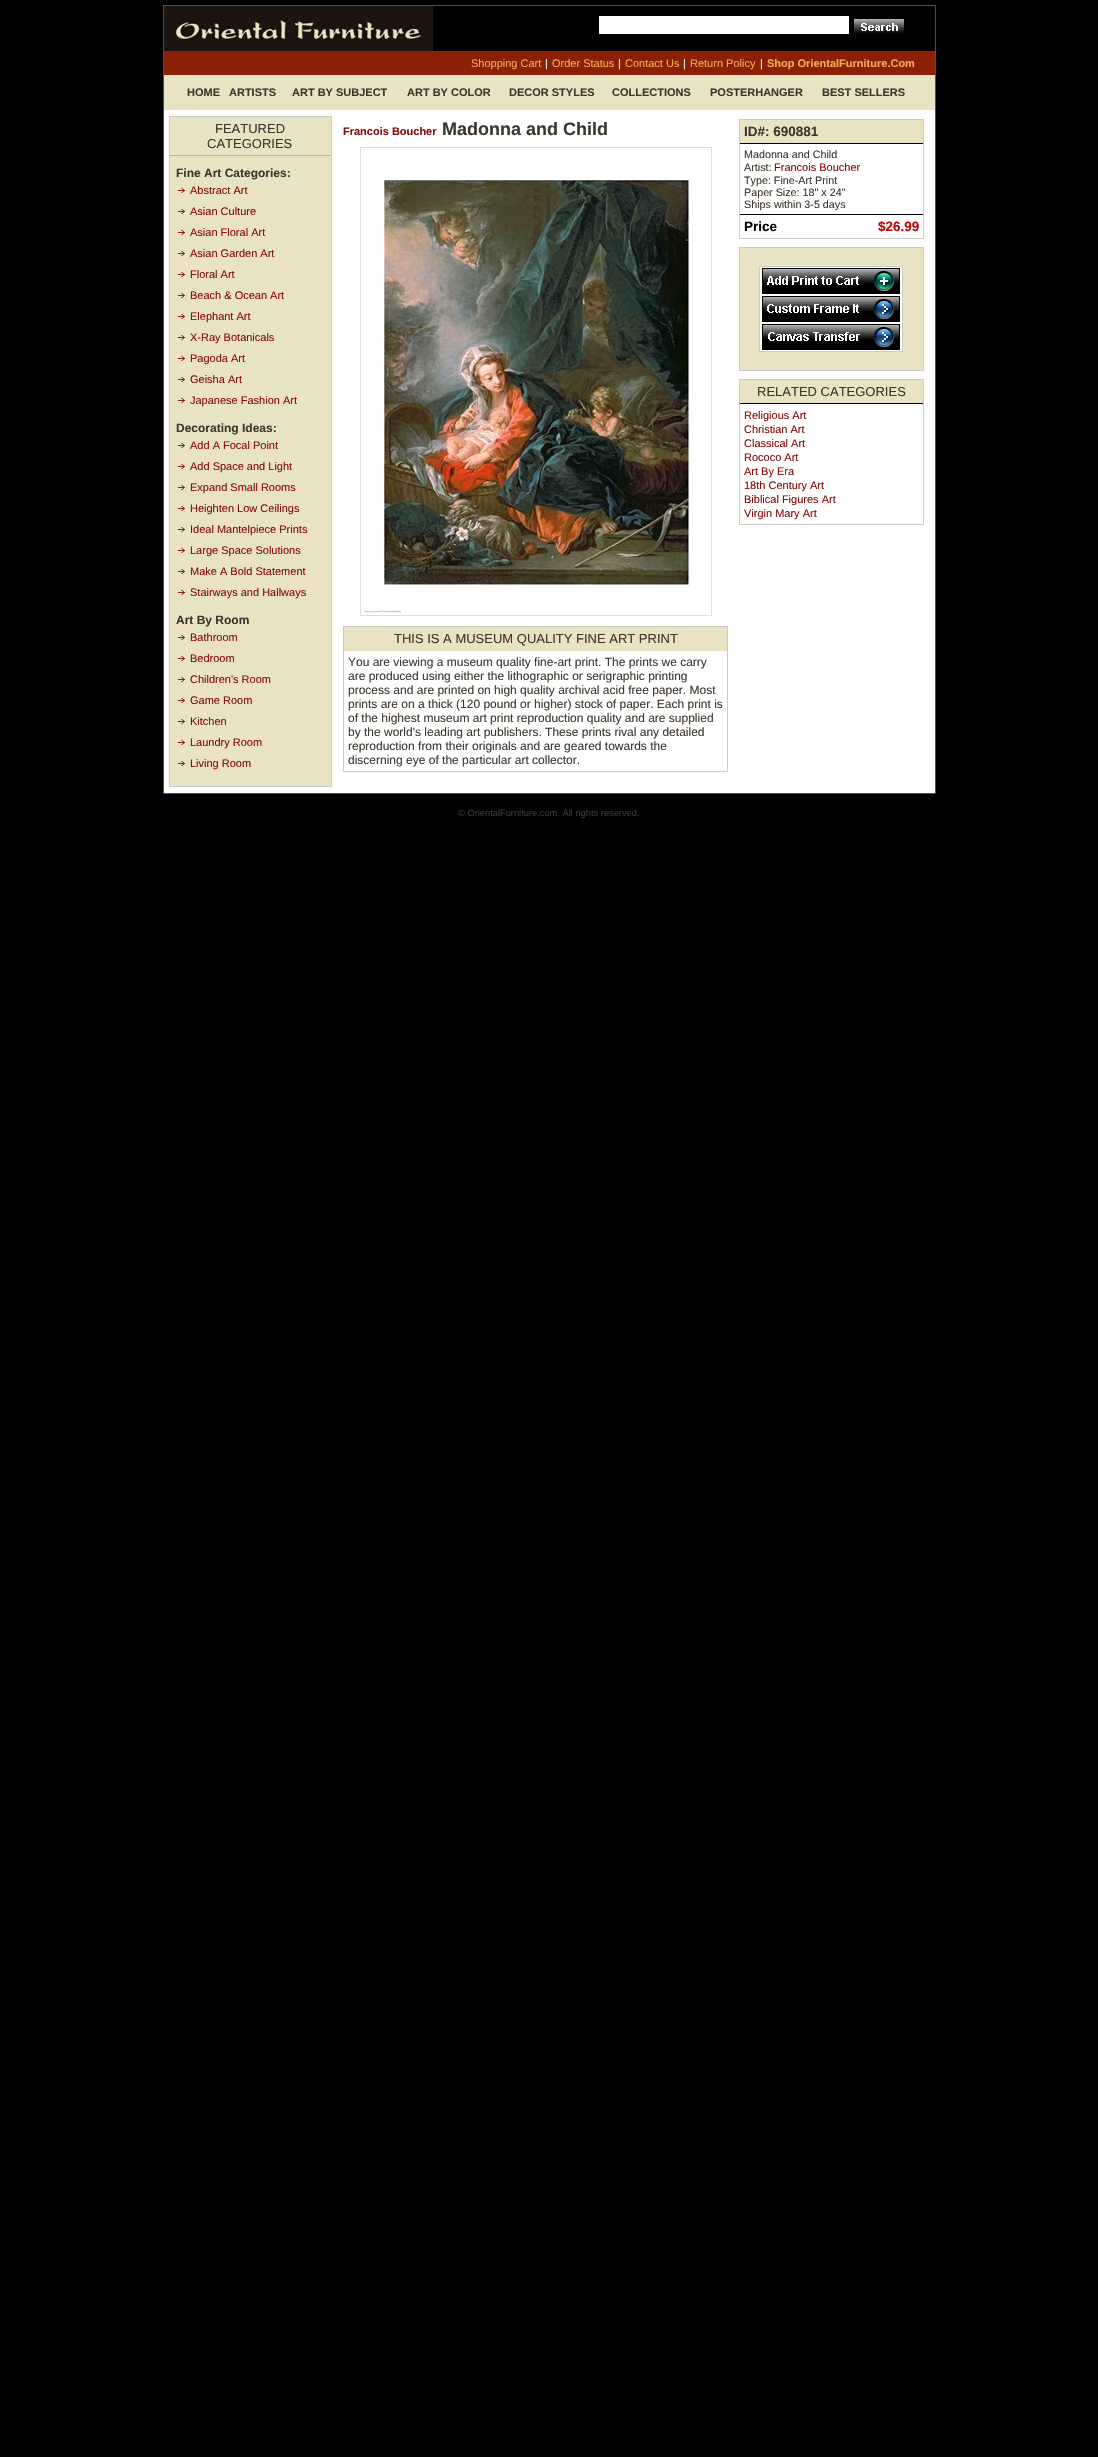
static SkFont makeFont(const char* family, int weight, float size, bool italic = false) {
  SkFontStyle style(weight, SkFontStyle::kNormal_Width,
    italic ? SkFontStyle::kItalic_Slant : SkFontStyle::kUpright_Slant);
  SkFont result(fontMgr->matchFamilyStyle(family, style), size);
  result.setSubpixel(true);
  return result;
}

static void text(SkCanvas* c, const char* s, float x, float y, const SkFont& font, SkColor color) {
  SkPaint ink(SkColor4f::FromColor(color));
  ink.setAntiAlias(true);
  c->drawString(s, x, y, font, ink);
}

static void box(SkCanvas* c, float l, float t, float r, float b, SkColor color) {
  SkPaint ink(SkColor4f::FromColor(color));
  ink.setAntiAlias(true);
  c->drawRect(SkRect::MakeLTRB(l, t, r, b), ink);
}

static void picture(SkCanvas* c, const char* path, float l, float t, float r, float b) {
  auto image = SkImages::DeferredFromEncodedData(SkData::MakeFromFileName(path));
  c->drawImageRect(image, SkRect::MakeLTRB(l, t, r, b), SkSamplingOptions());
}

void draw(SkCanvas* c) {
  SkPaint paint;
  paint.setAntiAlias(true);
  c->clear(0xff000000);
  box(c, 164, 110, 935, 793, 0xffffffff);
  paint.setStyle(SkPaint::kStroke_Style);
  paint.setStrokeWidth(1);
  paint.setColor(0xff564e41);
  c->drawRect(SkRect::MakeLTRB(163.5f, 5.5f, 935.5f, 793.5f), paint);
  picture(c, "img_01.png", 164, 6, 433, 51);
  box(c, 599, 16, 849, 34, 0xffffffff);
  picture(c, "img_02.png", 854, 19, 904, 34);
  box(c, 164, 51, 935, 75, 0xff8b2006);
  SkFont face1 = makeFont("Liberation Sans", 400, 11);
  text(c, "Shopping Cart", 471, 67, face1, 0xffedb053);
  text(c, "|", 545, 67, face1, 0xffffffff);
  text(c, "Order Status", 552, 67, face1, 0xffedb053);
  text(c, "|", 618, 67, face1, 0xffffffff);
  text(c, "Contact Us", 625, 67, face1, 0xffedb053);
  text(c, "|", 683, 67, face1, 0xffffffff);
  text(c, "Return Policy", 690, 67, face1, 0xffedb053);
  text(c, "|", 760, 67, face1, 0xffffffff);
  SkFont face2 = makeFont("Liberation Sans", 700, 11);
  text(c, "Shop OrientalFurniture.Com", 767, 67, face2, 0xffedb053);
  box(c, 164, 75, 935, 110, 0xffe8e3c3);
  text(c, "HOME", 187, 96, face2, 0xff3e372f);
  text(c, "ARTISTS", 229, 96, face2, 0xff3e372f);
  text(c, "ART BY SUBJECT", 292, 96, face2, 0xff3e372f);
  text(c, "ART BY COLOR", 407, 96, face2, 0xff3e372f);
  text(c, "DECOR STYLES", 509, 96, face2, 0xff3e372f);
  text(c, "COLLECTIONS", 612, 96, face2, 0xff3e372f);
  text(c, "POSTERHANGER", 710, 96, face2, 0xff3e372f);
  text(c, "BEST SELLERS", 822, 96, face2, 0xff3e372f);
  paint.setColor(0xffcdcbc7);
  c->drawRect(SkRect::MakeLTRB(169.5f, 116.5f, 331.5f, 786.5f), paint);
  box(c, 170, 117, 331, 155, 0xffe8e3c3);
  SkFont face3 = makeFont("Liberation Sans", 400, 13);
  text(c, "FEATURED", 215, 133, face3, 0xff3e372f);
  text(c, "CATEGORIES", 207, 148, face3, 0xff3e372f);
  box(c, 170, 156, 331, 786, 0xffe8e3c3);
  box(c, 170, 155, 331, 156, 0xffbcb89e);
  SkFont face4 = makeFont("Liberation Sans", 700, 12);
  text(c, "Fine Art Categories:", 176, 177, face4, 0xff3e372f);
  picture(c, "img_03.png", 178, 188, 185, 193);
  text(c, "Abstract Art", 190, 194, face1, 0xff880b0b);
  picture(c, "img_03.png", 178, 209, 185, 214);
  text(c, "Asian Culture", 190, 215, face1, 0xff880b0b);
  picture(c, "img_03.png", 178, 230, 185, 235);
  text(c, "Asian Floral Art", 190, 236, face1, 0xff880b0b);
  picture(c, "img_03.png", 178, 251, 185, 256);
  text(c, "Asian Garden Art", 190, 257, face1, 0xff880b0b);
  picture(c, "img_03.png", 178, 272, 185, 277);
  text(c, "Floral Art", 190, 278, face1, 0xff880b0b);
  picture(c, "img_03.png", 178, 293, 185, 298);
  text(c, "Beach & Ocean Art", 190, 299, face1, 0xff880b0b);
  picture(c, "img_03.png", 178, 314, 185, 319);
  text(c, "Elephant Art", 190, 320, face1, 0xff880b0b);
  picture(c, "img_03.png", 178, 335, 185, 340);
  text(c, "X-Ray Botanicals", 190, 341, face1, 0xff880b0b);
  picture(c, "img_03.png", 178, 356, 185, 361);
  text(c, "Pagoda Art", 190, 362, face1, 0xff880b0b);
  picture(c, "img_03.png", 178, 377, 185, 382);
  text(c, "Geisha Art", 190, 383, face1, 0xff880b0b);
  picture(c, "img_03.png", 178, 398, 185, 403);
  text(c, "Japanese Fashion Art", 190, 404, face1, 0xff880b0b);
  text(c, "Decorating Ideas:", 176, 432, face4, 0xff3e372f);
  picture(c, "img_03.png", 178, 443, 185, 448);
  text(c, "Add A Focal Point", 190, 449, face1, 0xff880b0b);
  picture(c, "img_03.png", 178, 464, 185, 469);
  text(c, "Add Space and Light", 190, 470, face1, 0xff880b0b);
  picture(c, "img_03.png", 178, 485, 185, 490);
  text(c, "Expand Small Rooms", 190, 491, face1, 0xff880b0b);
  picture(c, "img_03.png", 178, 506, 185, 511);
  text(c, "Heighten Low Ceilings", 190, 512, face1, 0xff880b0b);
  picture(c, "img_03.png", 178, 527, 185, 532);
  text(c, "Ideal Mantelpiece Prints", 190, 533, face1, 0xff880b0b);
  picture(c, "img_03.png", 178, 548, 185, 553);
  text(c, "Large Space Solutions", 190, 554, face1, 0xff880b0b);
  picture(c, "img_03.png", 178, 569, 185, 574);
  text(c, "Make A Bold Statement", 190, 575, face1, 0xff880b0b);
  picture(c, "img_03.png", 178, 590, 185, 595);
  text(c, "Stairways and Hallways", 190, 596, face1, 0xff880b0b);
  text(c, "Art By Room", 176, 624, face4, 0xff3e372f);
  picture(c, "img_03.png", 178, 635, 185, 640);
  text(c, "Bathroom", 190, 641, face1, 0xff880b0b);
  picture(c, "img_03.png", 178, 656, 185, 661);
  text(c, "Bedroom", 190, 662, face1, 0xff880b0b);
  picture(c, "img_03.png", 178, 677, 185, 682);
  text(c, "Children's Room", 190, 683, face1, 0xff880b0b);
  picture(c, "img_03.png", 178, 698, 185, 703);
  text(c, "Game Room", 190, 704, face1, 0xff880b0b);
  picture(c, "img_03.png", 178, 719, 185, 724);
  text(c, "Kitchen", 190, 725, face1, 0xff880b0b);
  picture(c, "img_03.png", 178, 740, 185, 745);
  text(c, "Laundry Room", 190, 746, face1, 0xff880b0b);
  picture(c, "img_03.png", 178, 761, 185, 766);
  text(c, "Living Room", 190, 767, face1, 0xff880b0b);
  text(c, "Francois Boucher", 343, 135, face2, 0xff880b0b);
  SkFont face5 = makeFont("Liberation Sans", 700, 18);
  text(c, "Madonna and Child", 442, 135, face5, 0xff3e372f);
  paint.setColor(0xffdfdfdf);
  c->drawRect(SkRect::MakeLTRB(360.5f, 147.5f, 711.5f, 615.5f), paint);
  picture(c, "img_04.png", 363, 179, 697, 613);
  paint.setColor(0xffcdcbc7);
  c->drawRect(SkRect::MakeLTRB(343.5f, 626.5f, 727.5f, 771.5f), paint);
  box(c, 344, 627, 727, 651, 0xffe8e3c3);
  text(c, "THIS IS A MUSEUM QUALITY FINE ART PRINT", 394, 643, face3, 0xff3e372f);
  SkFont face6 = makeFont("Liberation Sans", 400, 12);
  text(c, "You are viewing a museum quality fine-art print. The prints we carry", 348, 666, face6, 0xff3e372f);
  text(c, "are produced using either the lithographic or serigraphic printing", 348, 680, face6, 0xff3e372f);
  text(c, "process and are printed on high quality archival acid free paper. Most", 348, 694, face6, 0xff3e372f);
  text(c, "prints are on a thick (120 pound or higher) stock of paper. Each print is", 348, 708, face6, 0xff3e372f);
  text(c, "of the highest museum art print reproduction quality and are supplied", 348, 722, face6, 0xff3e372f);
  text(c, "by the world's leading art publishers. These prints rival any detailed", 348, 736, face6, 0xff3e372f);
  text(c, "reproduction from their originals and are geared towards the", 348, 750, face6, 0xff3e372f);
  text(c, "discerning eye of the particular art collector.", 348, 764, face6, 0xff3e372f);
  c->drawRect(SkRect::MakeLTRB(739.5f, 119.5f, 923.5f, 238.5f), paint);
  box(c, 740, 120, 923, 143, 0xffe8e3c3);
  SkFont face7 = makeFont("Liberation Sans", 700, 13.5f);
  text(c, "ID#: 690881", 744, 136, face7, 0xff3e372f);
  box(c, 740, 143, 923, 144, 0xff000000);
  SkFont face8 = makeFont("Liberation Sans", 400, 10.75f);
  text(c, "Madonna and Child", 744, 158, face8, 0xff3e372f);
  text(c, "Artist:", 744, 171, face8, 0xff3e372f);
  text(c, "Francois Boucher", 774, 171, face1, 0xff880b0b);
  text(c, "Type: Fine-Art Print", 744, 184, face8, 0xff3e372f);
  text(c, "Paper Size: 18\" x 24\"", 744, 196, face8, 0xff3e372f);
  text(c, "Ships within 3-5 days", 744, 208, face8, 0xff3e372f);
  box(c, 740, 214, 923, 215, 0xff000000);
  text(c, "Price", 744, 231, face7, 0xff000000);
  text(c, "$26.99", 878, 231, face7, 0xffbc0404);
  c->drawRect(SkRect::MakeLTRB(739.5f, 247.5f, 923.5f, 370.5f), paint);
  box(c, 740, 248, 923, 370, 0xffe8e3c3);
  paint.setStyle(SkPaint::kFill_Style);
  paint.setColor(0xffffffff);
  c->drawRect(SkRect::MakeLTRB(759.5f, 266.5f, 902.5f, 351.5f), paint);
  paint.setStyle(SkPaint::kStroke_Style);
  paint.setColor(0xffcdcbc7);
  c->drawRect(SkRect::MakeLTRB(759.5f, 266.5f, 902.5f, 351.5f), paint);
  picture(c, "img_05.png", 762, 268, 900, 294);
  picture(c, "img_06.png", 762, 296, 900, 322);
  picture(c, "img_07.png", 762, 324, 900, 350);
  c->drawRect(SkRect::MakeLTRB(739.5f, 379.5f, 923.5f, 524.5f), paint);
  box(c, 740, 380, 923, 403, 0xffe8e3c3);
  text(c, "RELATED CATEGORIES", 757, 396, face3, 0xff3e372f);
  box(c, 740, 403, 923, 404, 0xff000000);
  text(c, "Religious Art", 744, 419, face1, 0xff880b0b);
  text(c, "Christian Art", 744, 433, face1, 0xff880b0b);
  text(c, "Classical Art", 744, 447, face1, 0xff880b0b);
  text(c, "Rococo Art", 744, 461, face1, 0xff880b0b);
  text(c, "Art By Era", 744, 475, face1, 0xff880b0b);
  text(c, "18th Century Art", 744, 489, face1, 0xff880b0b);
  text(c, "Biblical Figures Art", 744, 503, face1, 0xff880b0b);
  text(c, "Virgin Mary Art", 744, 517, face1, 0xff880b0b);
  SkFont face9 = makeFont("Liberation Sans", 400, 9.3f);
  text(c, "© OrientalFurniture.com. All rights reserved.", 458, 816, face9, 0xff3e372f);
}
